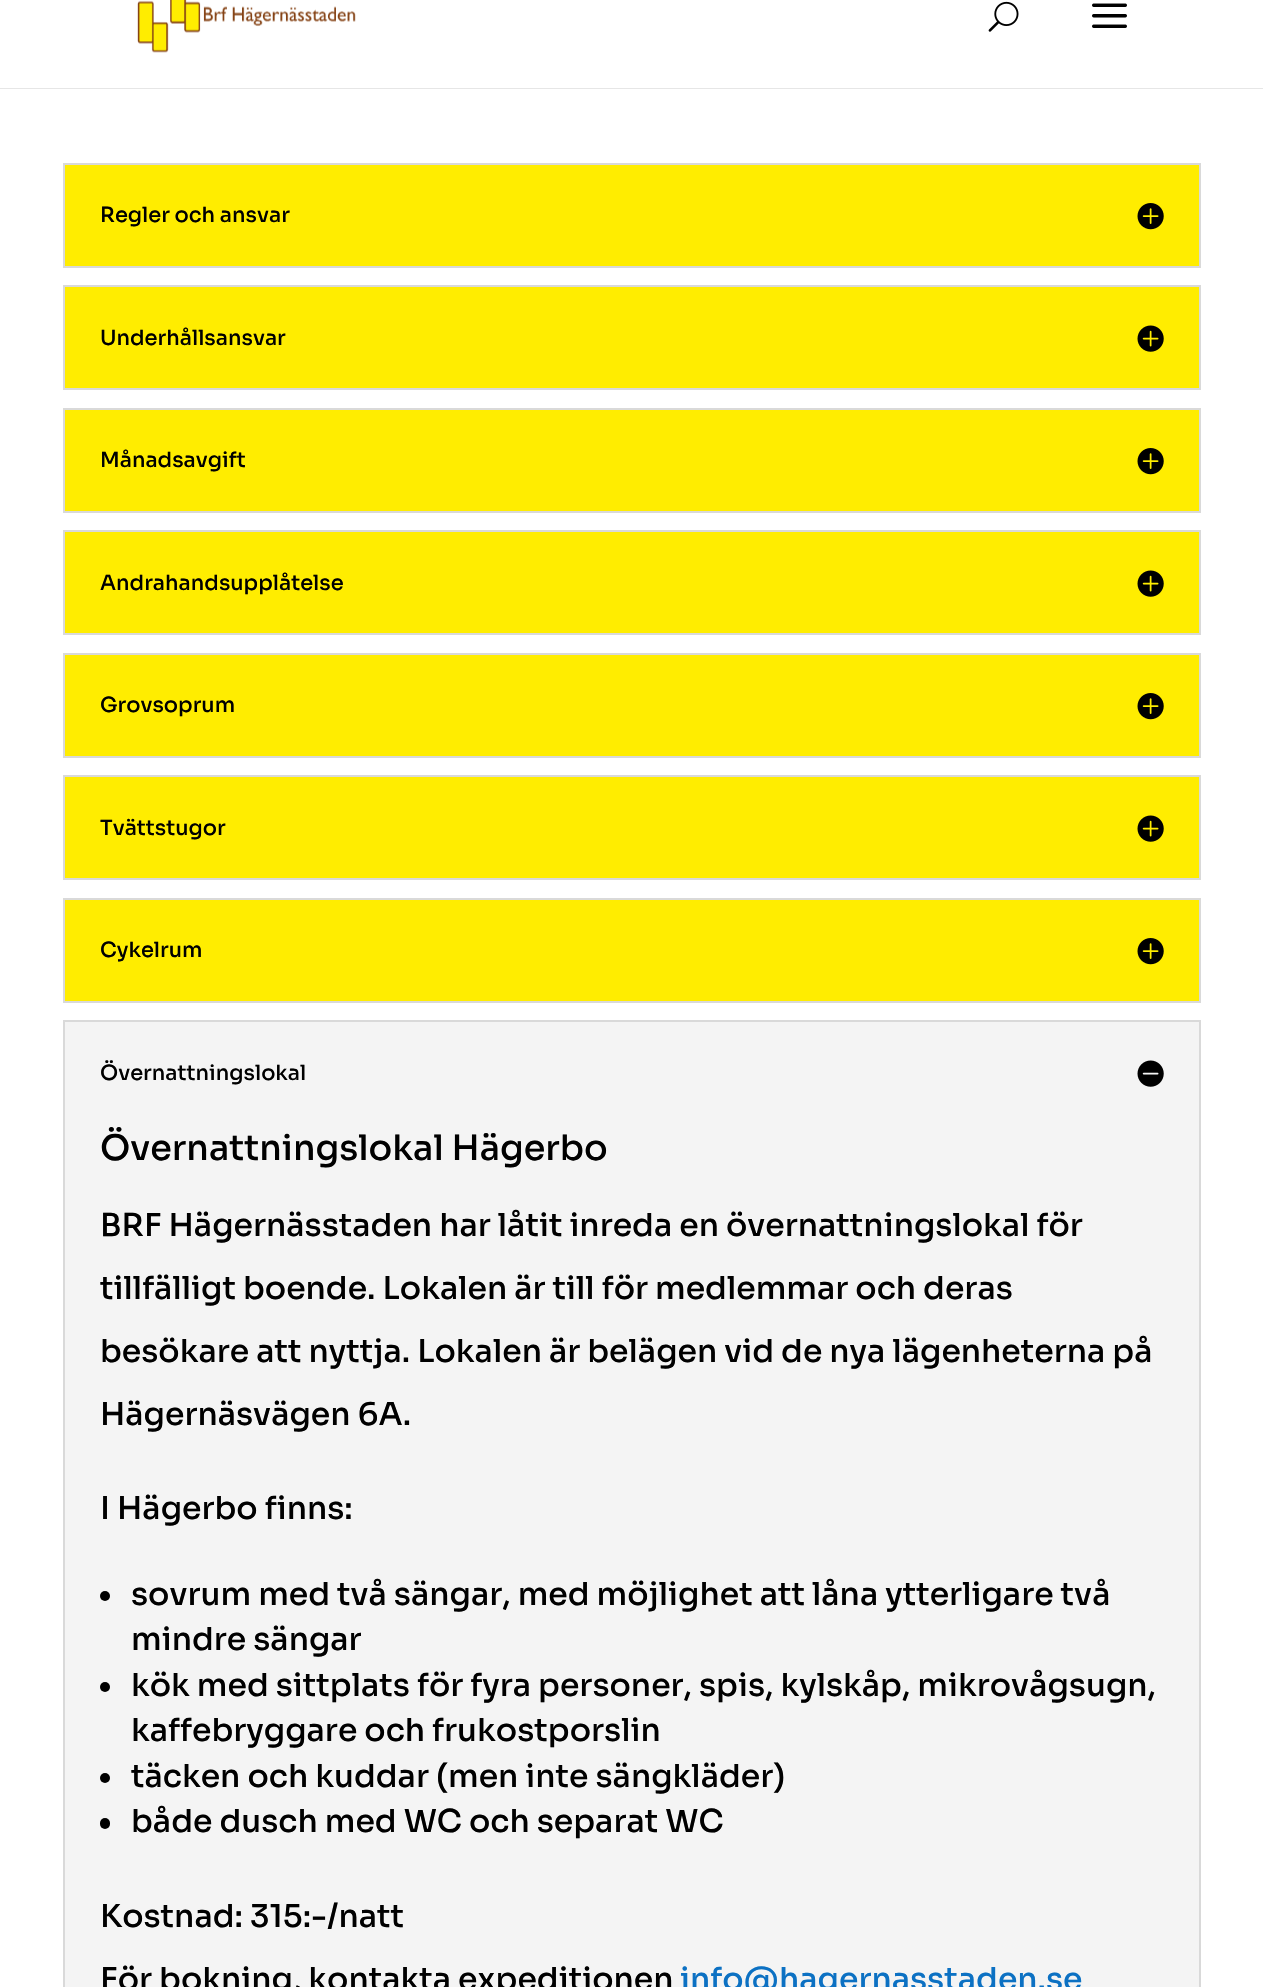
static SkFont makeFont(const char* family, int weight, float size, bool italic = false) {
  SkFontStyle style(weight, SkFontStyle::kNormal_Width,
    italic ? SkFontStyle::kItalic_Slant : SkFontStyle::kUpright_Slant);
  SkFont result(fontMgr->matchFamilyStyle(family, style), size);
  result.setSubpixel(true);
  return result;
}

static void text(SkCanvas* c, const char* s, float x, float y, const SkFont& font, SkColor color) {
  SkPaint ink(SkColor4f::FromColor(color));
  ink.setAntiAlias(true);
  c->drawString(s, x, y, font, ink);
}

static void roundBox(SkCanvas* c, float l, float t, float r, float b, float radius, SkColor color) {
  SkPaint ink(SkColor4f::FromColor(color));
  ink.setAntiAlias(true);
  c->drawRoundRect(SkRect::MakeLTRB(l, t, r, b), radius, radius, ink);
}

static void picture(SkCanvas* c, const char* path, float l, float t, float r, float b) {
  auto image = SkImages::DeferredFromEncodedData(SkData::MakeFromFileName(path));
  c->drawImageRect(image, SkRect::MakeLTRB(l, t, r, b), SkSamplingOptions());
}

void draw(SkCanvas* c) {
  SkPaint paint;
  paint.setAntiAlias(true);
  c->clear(0xffffffff);
  paint.setColor(0xffe6e6e6);
  c->drawPath(SkPathBuilder().moveTo(0, 88).lineTo(0, 89).lineTo(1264, 89).lineTo(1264, -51).lineTo(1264, 88).close().detach(), paint);
  picture(c, "img_01.png", 137, 0, 356, 53);
  picture(c, "img_02.png", 988, 1, 1019, 32);
  picture(c, "img_03.png", 1092, 3, 1127, 28);
  paint.setColor(0xffffed00);
  c->drawRect(SkRect::MakeLTRB(64, 164, 1200, 267), paint);
  paint.setStyle(SkPaint::kStroke_Style);
  paint.setStrokeWidth(2);
  paint.setColor(0xffd9d9d9);
  c->drawRect(SkRect::MakeLTRB(64, 164, 1200, 267), paint);
  SkFont face1 = makeFont("Sora", 500, 21);
  text(c, "Regler och ansvar", 100, 222, face1, 0xff000000);
  picture(c, "img_04.png", 1137, 203, 1164, 230);
  paint.setStyle(SkPaint::kFill_Style);
  paint.setColor(0xffffed00);
  c->drawRect(SkRect::MakeLTRB(64, 286, 1200, 389), paint);
  paint.setStyle(SkPaint::kStroke_Style);
  paint.setColor(0xffd9d9d9);
  c->drawRect(SkRect::MakeLTRB(64, 286, 1200, 389), paint);
  text(c, "Underhållsansvar", 100, 345, face1, 0xff000000);
  picture(c, "img_05.png", 1137, 325, 1164, 352);
  paint.setStyle(SkPaint::kFill_Style);
  paint.setColor(0xffffed00);
  c->drawRect(SkRect::MakeLTRB(64, 409, 1200, 512), paint);
  paint.setStyle(SkPaint::kStroke_Style);
  paint.setColor(0xffd9d9d9);
  c->drawRect(SkRect::MakeLTRB(64, 409, 1200, 512), paint);
  text(c, "Månadsavgift", 100, 467, face1, 0xff000000);
  picture(c, "img_04.png", 1137, 448, 1164, 475);
  paint.setStyle(SkPaint::kFill_Style);
  paint.setColor(0xffffed00);
  c->drawRect(SkRect::MakeLTRB(64, 531, 1200, 634), paint);
  paint.setStyle(SkPaint::kStroke_Style);
  paint.setColor(0xffd9d9d9);
  c->drawRect(SkRect::MakeLTRB(64, 531, 1200, 634), paint);
  text(c, "Andrahandsupplåtelse", 100, 590, face1, 0xff000000);
  picture(c, "img_05.png", 1137, 570, 1164, 597);
  paint.setStyle(SkPaint::kFill_Style);
  paint.setColor(0xffffed00);
  c->drawRect(SkRect::MakeLTRB(64, 654, 1200, 757), paint);
  paint.setStyle(SkPaint::kStroke_Style);
  paint.setColor(0xffd9d9d9);
  c->drawRect(SkRect::MakeLTRB(64, 654, 1200, 757), paint);
  text(c, "Grovsoprum", 100, 712, face1, 0xff000000);
  picture(c, "img_04.png", 1137, 693, 1164, 720);
  paint.setStyle(SkPaint::kFill_Style);
  paint.setColor(0xffffed00);
  c->drawRect(SkRect::MakeLTRB(64, 776, 1200, 879), paint);
  paint.setStyle(SkPaint::kStroke_Style);
  paint.setColor(0xffd9d9d9);
  c->drawRect(SkRect::MakeLTRB(64, 776, 1200, 879), paint);
  text(c, "Tvättstugor", 100, 835, face1, 0xff000000);
  picture(c, "img_05.png", 1137, 815, 1164, 842);
  paint.setStyle(SkPaint::kFill_Style);
  paint.setColor(0xffffed00);
  c->drawRect(SkRect::MakeLTRB(64, 899, 1200, 1002), paint);
  paint.setStyle(SkPaint::kStroke_Style);
  paint.setColor(0xffd9d9d9);
  c->drawRect(SkRect::MakeLTRB(64, 899, 1200, 1002), paint);
  text(c, "Cykelrum", 100, 957, face1, 0xff000000);
  picture(c, "img_04.png", 1137, 938, 1164, 965);
  paint.setStyle(SkPaint::kFill_Style);
  paint.setColor(0xfff4f4f4);
  c->drawRect(SkRect::MakeLTRB(64, 1021, 1200, 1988), paint);
  paint.setStyle(SkPaint::kStroke_Style);
  paint.setColor(0xffd9d9d9);
  c->drawRect(SkRect::MakeLTRB(64, 1021, 1200, 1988), paint);
  text(c, "Övernattningslokal", 100, 1080, face1, 0xff000000);
  picture(c, "img_06.png", 1137, 1060, 1164, 1087);
  SkFont face2 = makeFont("Sora", 500, 35);
  text(c, "Övernattningslokal Hägerbo", 100, 1160, face2, 0xff000000);
  SkFont face3 = makeFont("Sora", 500, 31.5f);
  text(c, "BRF Hägernässtaden har låtit inreda en övernattningslokal för", 100, 1236, face3, 0xff000000);
  text(c, "tillfälligt boende. Lokalen är till för medlemmar och deras", 100, 1299, face3, 0xff000000);
  text(c, "besökare att nyttja. Lokalen är belägen vid de nya lägenheterna på", 100, 1362, face3, 0xff000000);
  text(c, "Hägernäsvägen 6A.", 100, 1425, face3, 0xff000000);
  text(c, "I Hägerbo finns:", 100, 1519, face3, 0xff000000);
  paint.setStyle(SkPaint::kFill_Style);
  paint.setColor(0xff000000);
  c->drawCircle(105, 1596, 5, paint);
  text(c, "sovrum med två sängar, med möjlighet att låna ytterligare två", 131, 1605, face3, 0xff000000);
  text(c, "mindre sängar", 131, 1650, face3, 0xff000000);
  c->drawCircle(105, 1687, 5, paint);
  text(c, "kök med sittplats för fyra personer, spis, kylskåp, mikrovågsugn,", 131, 1696, face3, 0xff000000);
  text(c, "kaffebryggare och frukostporslin", 131, 1741, face3, 0xff000000);
  c->drawCircle(105, 1778, 5, paint);
  text(c, "täcken och kuddar (men inte sängkläder)", 131, 1787, face3, 0xff000000);
  roundBox(c, 100, 1818, 110, 1829, 5, 0xff000000);
  text(c, "både dusch med WC och separat WC", 131, 1832, face3, 0xff000000);
  text(c, "Kostnad: 315:-/natt", 100, 1927, face3, 0xff000000);
  text(c, "För bokning, kontakta expeditionen", 100, 1990, face3, 0xff000000);
  text(c, "info@hagernasstaden.se", 680, 1990, face3, 0xff0c71c3);
}
